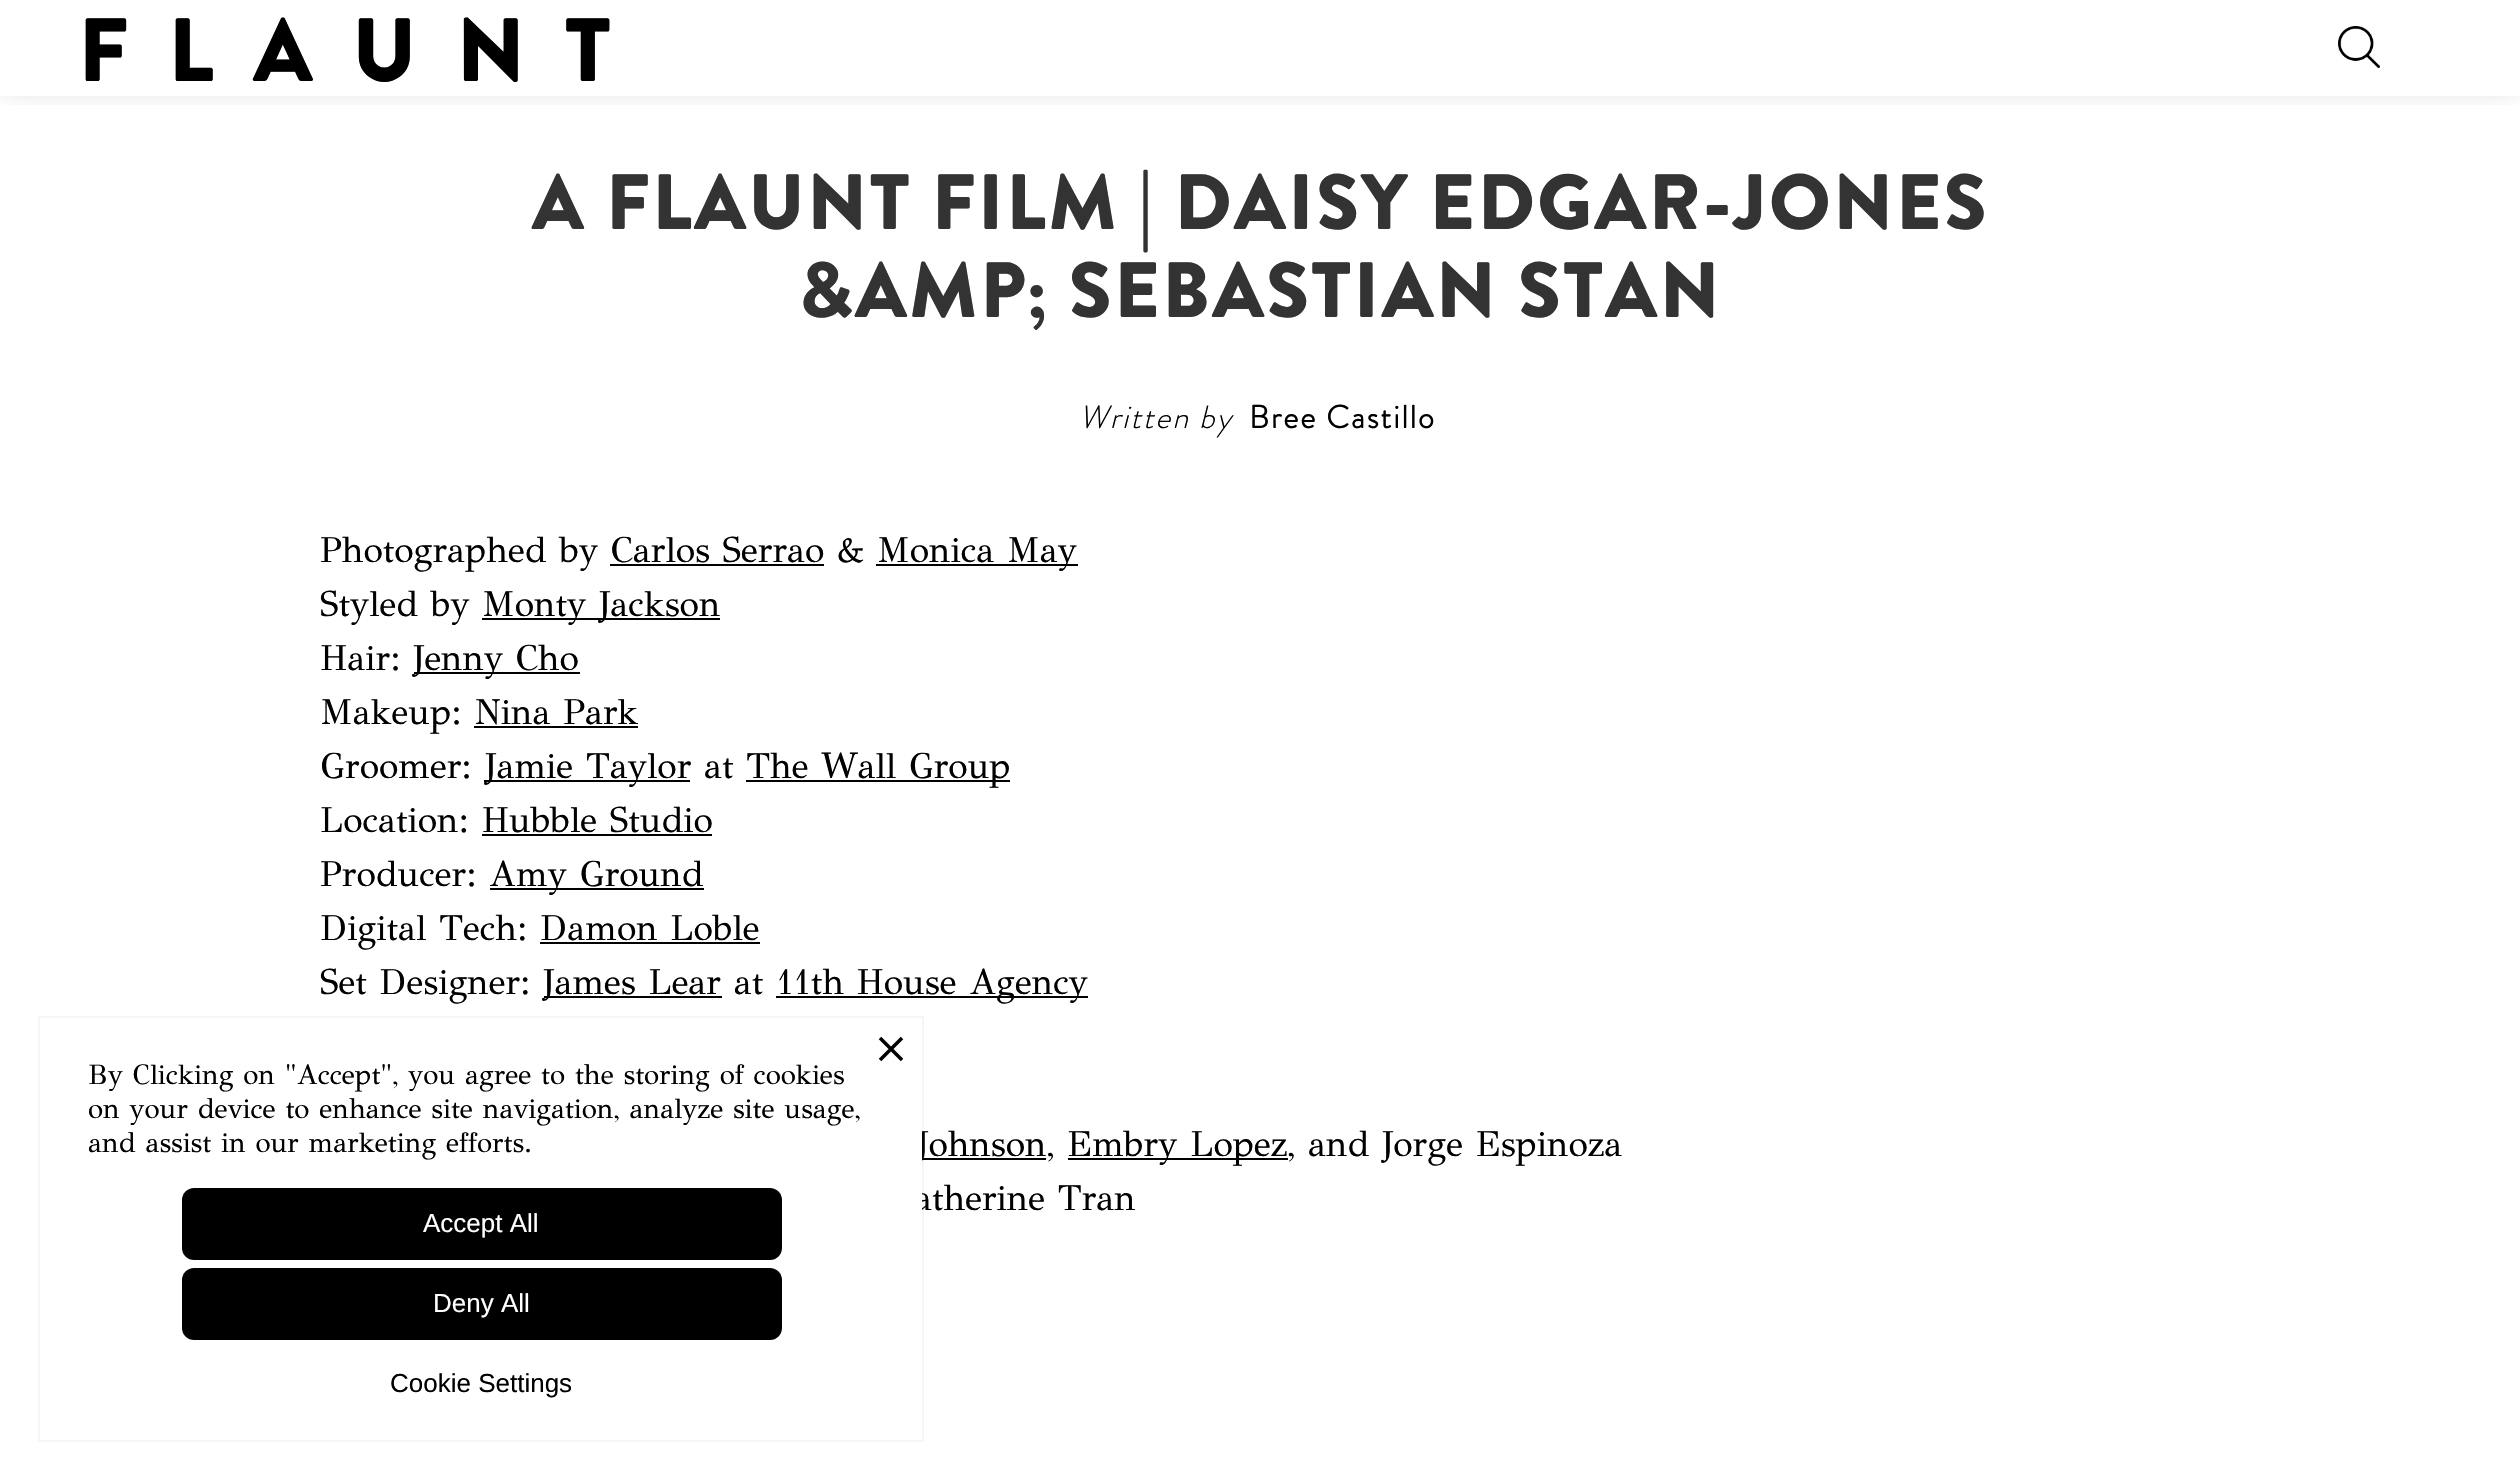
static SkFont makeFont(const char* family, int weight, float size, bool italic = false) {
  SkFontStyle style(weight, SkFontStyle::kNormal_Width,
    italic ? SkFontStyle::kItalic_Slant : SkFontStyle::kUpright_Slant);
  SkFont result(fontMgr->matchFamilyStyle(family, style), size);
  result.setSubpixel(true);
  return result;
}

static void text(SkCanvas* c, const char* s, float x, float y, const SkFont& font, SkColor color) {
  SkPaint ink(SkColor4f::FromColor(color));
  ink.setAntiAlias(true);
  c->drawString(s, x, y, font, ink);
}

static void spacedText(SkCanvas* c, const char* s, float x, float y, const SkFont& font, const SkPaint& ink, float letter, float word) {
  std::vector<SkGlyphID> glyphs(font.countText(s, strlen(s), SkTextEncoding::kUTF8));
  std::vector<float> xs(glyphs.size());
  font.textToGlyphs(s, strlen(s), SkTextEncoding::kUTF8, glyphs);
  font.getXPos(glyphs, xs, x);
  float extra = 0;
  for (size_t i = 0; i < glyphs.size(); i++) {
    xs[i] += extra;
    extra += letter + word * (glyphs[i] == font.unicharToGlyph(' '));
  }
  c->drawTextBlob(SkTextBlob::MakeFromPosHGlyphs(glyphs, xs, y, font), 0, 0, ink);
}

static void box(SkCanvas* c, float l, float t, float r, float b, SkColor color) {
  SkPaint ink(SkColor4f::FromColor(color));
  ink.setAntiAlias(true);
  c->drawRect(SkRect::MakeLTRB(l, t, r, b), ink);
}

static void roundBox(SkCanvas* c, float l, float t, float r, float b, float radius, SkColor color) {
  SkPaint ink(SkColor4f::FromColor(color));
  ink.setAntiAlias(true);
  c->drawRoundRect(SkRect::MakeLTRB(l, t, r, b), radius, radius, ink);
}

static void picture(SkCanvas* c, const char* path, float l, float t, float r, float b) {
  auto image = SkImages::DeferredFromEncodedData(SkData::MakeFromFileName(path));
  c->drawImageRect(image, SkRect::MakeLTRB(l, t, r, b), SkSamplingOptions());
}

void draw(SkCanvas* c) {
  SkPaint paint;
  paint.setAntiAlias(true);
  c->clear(0xffffffff);
  c->save();
  c->clipRect(SkRect::MakeLTRB(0, 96, 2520, 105));
  paint.setColor(0x33121213);
  paint.setMaskFilter(SkMaskFilter::MakeBlur(kNormal_SkBlurStyle, 15));
  c->drawRect(SkRect::MakeLTRB(0, -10, 2520, 86), paint);
  paint.setMaskFilter(nullptr);
  c->restore();
  SkFont face1 = makeFont("Brandon Grotesque", 900, 89.5f);
  text(c, "F  L  A  U  N  T", 78, 81, face1, 0xff000000);
  picture(c, "img_01.png", 2338, 26, 2380, 68);
  SkFont face2 = makeFont("Brandon Grotesque", 900, 78.1f);
  paint.setColor(0xff333333);
  spacedText(c, "A FLAUNT FILM | DAISY EDGAR-JONES", 532, 229, face2, paint, 2.35f, 0);
  spacedText(c, "&AMP; SEBASTIAN STAN", 798, 317, face2, paint, 2.35f, 0);
  SkFont face3 = makeFont("Brandon Grotesque", 300, 32, true);
  paint.setColor(0xff000000);
  spacedText(c, "Written by", 1079, 428, face3, paint, 2, 0);
  SkFont face4 = makeFont("Brandon Grotesque", 700, 32);
  spacedText(c, "Bree Castillo", 1249, 428, face4, paint, 2, 0);
  SkFont face5 = makeFont("GFS Didot", 400, 36);
  text(c, "Photographed by Carlos Serrao &", 320, 562, face5, 0xff000000);
  box(c, 876, 564, 1078, 566, 0xff000000);
  text(c, "Monica May", 877, 562, face5, 0xff000000);
  box(c, 610, 564, 824, 566, 0xff000000);
  text(c, "Styled by", 320, 616, face5, 0xff000000);
  box(c, 482, 618, 720, 620, 0xff000000);
  text(c, "Monty Jackson", 482, 616, face5, 0xff000000);
  text(c, "Hair:", 320, 670, face5, 0xff000000);
  box(c, 414, 672, 580, 674, 0xff000000);
  text(c, "Jenny Cho", 413, 670, face5, 0xff000000);
  text(c, "Makeup: Nina Park", 320, 724, face5, 0xff000000);
  box(c, 474, 726, 638, 728, 0xff000000);
  text(c, "Groomer:", 320, 778, face5, 0xff000000);
  box(c, 484, 780, 690, 782, 0xff000000);
  text(c, "Jamie Taylor at", 485, 778, face5, 0xff000000);
  box(c, 746, 780, 1010, 782, 0xff000000);
  text(c, "The Wall Group", 746, 778, face5, 0xff000000);
  text(c, "Location: Hubble Studio", 320, 832, face5, 0xff000000);
  box(c, 482, 834, 712, 836, 0xff000000);
  text(c, "Producer:", 320, 886, face5, 0xff000000);
  box(c, 490, 888, 704, 890, 0xff000000);
  text(c, "Amy Ground", 489, 886, face5, 0xff000000);
  text(c, "Digital Tech: Damon Loble", 320, 940, face5, 0xff000000);
  box(c, 540, 942, 760, 944, 0xff000000);
  text(c, "Set Designer:", 320, 994, face5, 0xff000000);
  box(c, 544, 996, 722, 998, 0xff000000);
  text(c, "James Lear at", 543, 994, face5, 0xff000000);
  box(c, 776, 996, 1088, 998, 0xff000000);
  text(c, "11th House Agency", 776, 994, face5, 0xff000000);
  box(c, 922, 1158, 1046, 1160, 0xff000000);
  text(c, "Johnson,", 917, 1156, face5, 0xff000000);
  box(c, 1068, 1158, 1288, 1160, 0xff000000);
  text(c, "Embry Lopez, and Jorge Espinoza", 1067, 1156, face5, 0xff000000);
  text(c, "atherine Tran", 914, 1210, face5, 0xff000000);
  roundBox(c, 40, 1018, 922, 1440, 24, 0xffffffff);
  paint.setStyle(SkPaint::kStroke_Style);
  paint.setStrokeWidth(2);
  paint.setColor(0x0d555555);
  c->drawRect(SkRect::MakeLTRB(39, 1017, 923, 1441), paint);
  picture(c, "img_02.png", 878, 1036, 904, 1062);
  SkFont face6 = makeFont("GFS Didot", 400, 28);
  text(c, "By Clicking on \"Accept\", you agree to the storing of cookies", 88, 1084, face6, 0xff000000);
  text(c, "on your device to enhance site navigation, analyze site usage,", 88, 1118, face6, 0xff000000);
  text(c, "and assist in our marketing efforts.", 88, 1152, face6, 0xff000000);
  roundBox(c, 182, 1188, 782, 1260, 12, 0xff000000);
  SkFont face7 = makeFont("Liberation Sans", 400, 26);
  text(c, "Accept All", 423, 1232, face7, 0xffffffff);
  roundBox(c, 182, 1268, 782, 1340, 12, 0xff000000);
  text(c, "Deny All", 433, 1312, face7, 0xffffffff);
  text(c, "Cookie Settings", 390, 1392, face7, 0xff000000);
}
